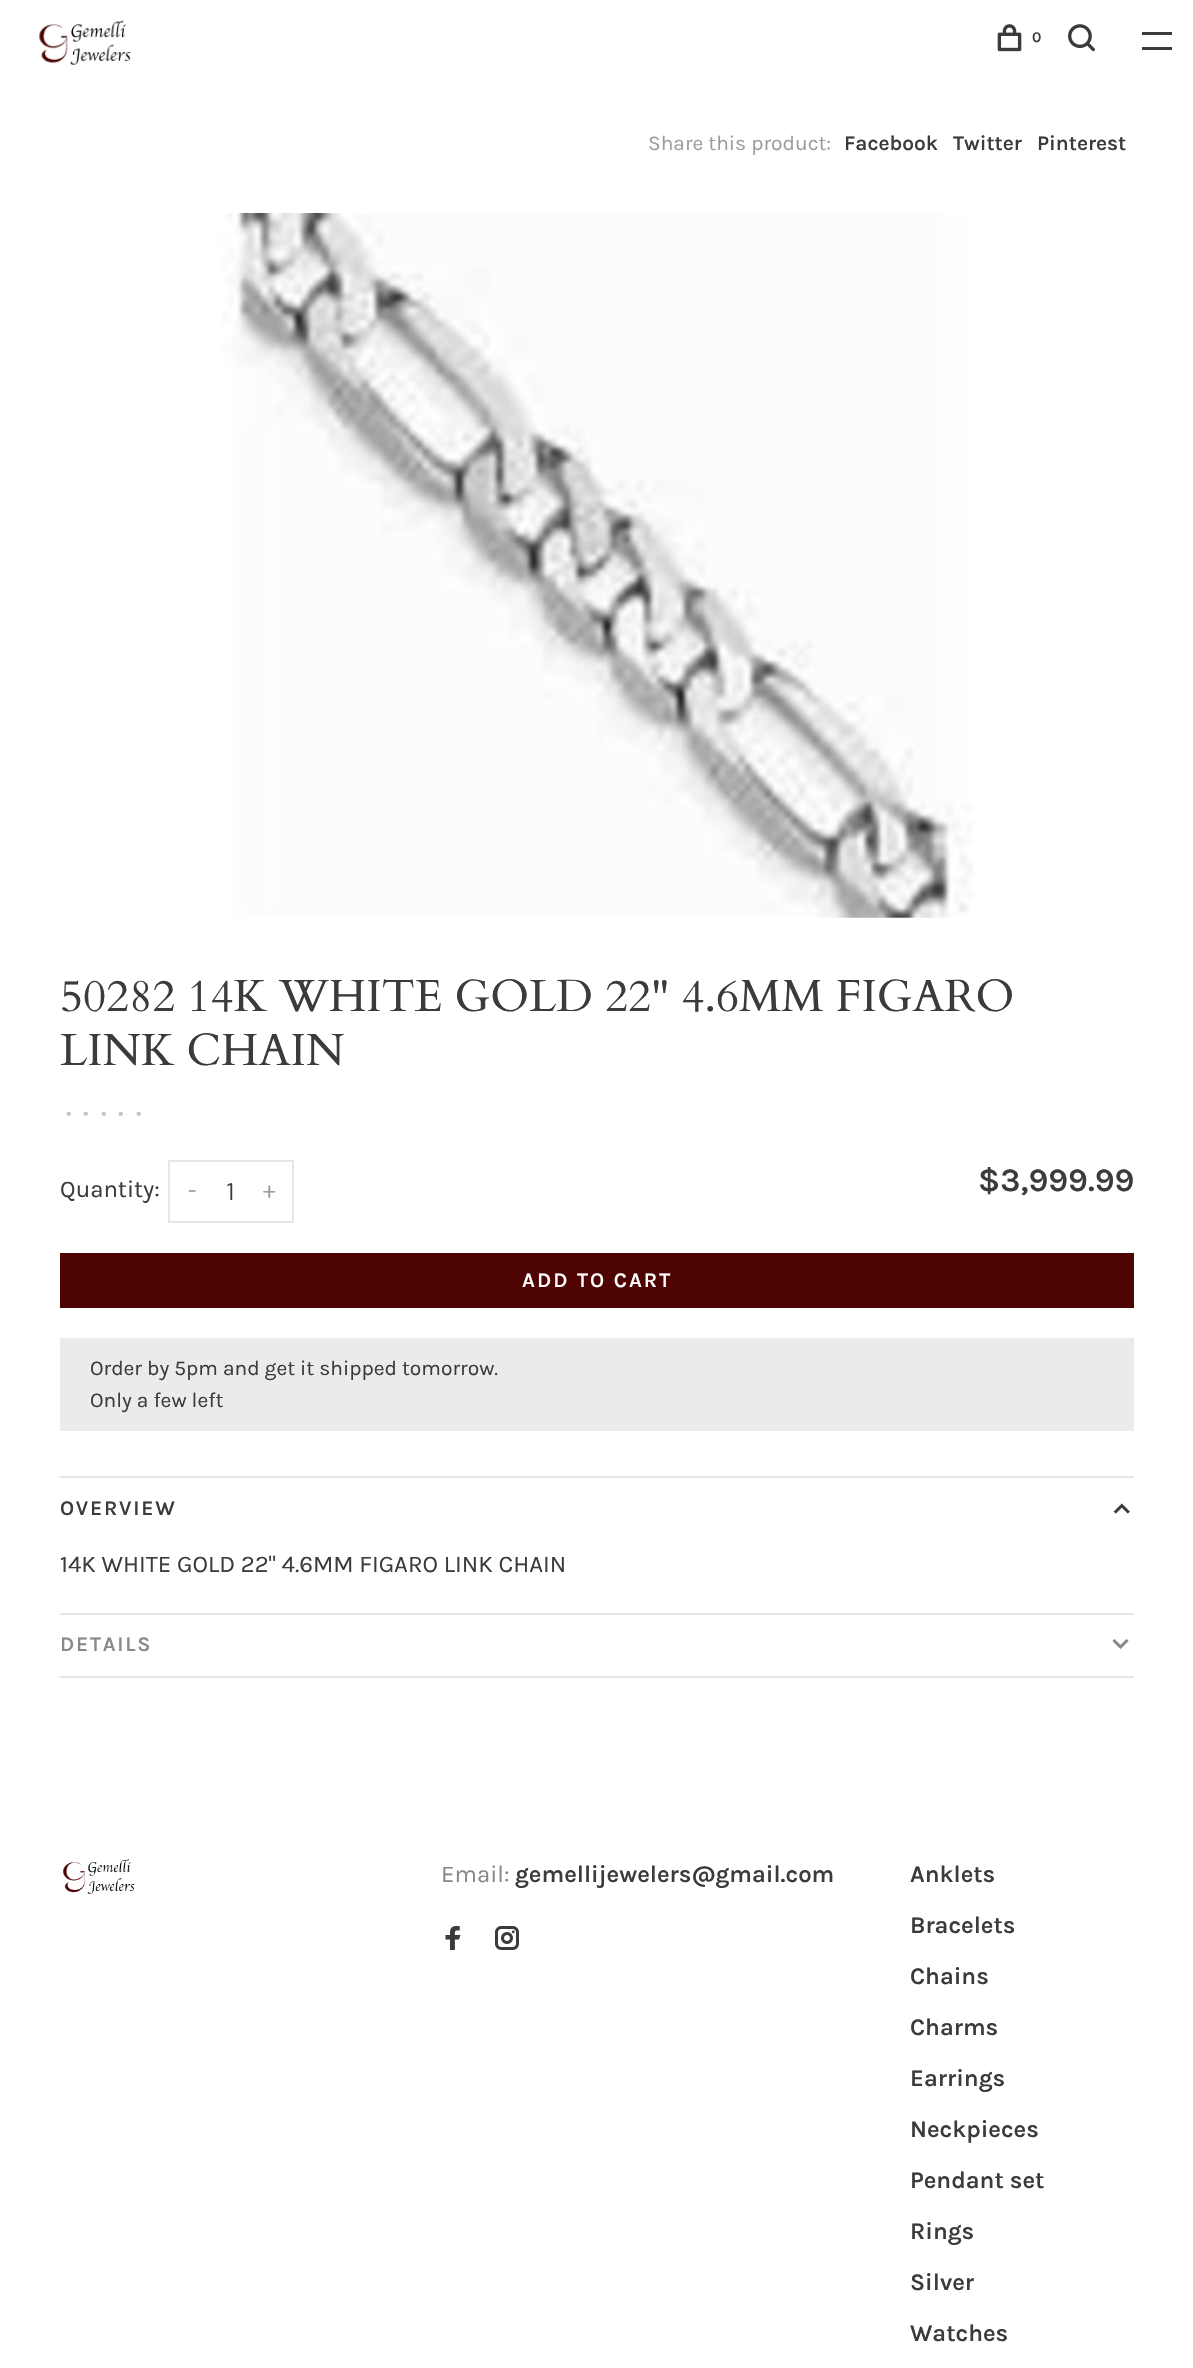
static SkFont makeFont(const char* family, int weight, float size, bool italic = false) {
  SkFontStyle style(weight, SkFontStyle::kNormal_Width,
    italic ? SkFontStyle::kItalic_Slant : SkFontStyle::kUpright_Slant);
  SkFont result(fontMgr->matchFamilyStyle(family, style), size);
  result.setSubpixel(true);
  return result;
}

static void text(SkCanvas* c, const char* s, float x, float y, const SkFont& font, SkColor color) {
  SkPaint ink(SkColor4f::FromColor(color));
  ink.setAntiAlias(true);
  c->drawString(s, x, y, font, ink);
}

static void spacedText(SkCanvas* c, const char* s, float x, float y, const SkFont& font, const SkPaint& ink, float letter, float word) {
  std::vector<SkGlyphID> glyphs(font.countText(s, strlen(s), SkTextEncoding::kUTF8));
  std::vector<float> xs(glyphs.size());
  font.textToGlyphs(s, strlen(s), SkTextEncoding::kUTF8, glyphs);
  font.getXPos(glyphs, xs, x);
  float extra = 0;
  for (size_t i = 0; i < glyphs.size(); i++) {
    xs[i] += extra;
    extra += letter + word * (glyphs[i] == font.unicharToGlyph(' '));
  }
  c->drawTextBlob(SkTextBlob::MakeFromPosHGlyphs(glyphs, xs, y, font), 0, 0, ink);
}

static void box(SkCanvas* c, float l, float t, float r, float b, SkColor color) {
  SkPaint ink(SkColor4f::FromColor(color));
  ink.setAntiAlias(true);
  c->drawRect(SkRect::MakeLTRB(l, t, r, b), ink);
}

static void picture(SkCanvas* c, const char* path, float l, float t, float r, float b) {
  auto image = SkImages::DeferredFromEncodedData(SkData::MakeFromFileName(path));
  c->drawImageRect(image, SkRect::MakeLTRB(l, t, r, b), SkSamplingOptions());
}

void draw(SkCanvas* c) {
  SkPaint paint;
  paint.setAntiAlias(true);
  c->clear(0xffffffff);
  picture(c, "img_01.png", 39, 20, 131, 65);
  picture(c, "img_02.png", 997, 24, 1022, 52);
  SkFont face1 = makeFont("Karla", 600, 15);
  paint.setColor(0xff3b3b3b);
  spacedText(c, "0", 1032, 42, face1, paint, 2.1f, 0);
  picture(c, "img_03.png", 1068, 24, 1095, 52);
  box(c, 1142, 32, 1172, 35, 0xff3b3b3b);
  box(c, 1142, 47, 1172, 50, 0xff3b3b3b);
  SkFont face2 = makeFont("Karla", 400, 21);
  text(c, "Share this product:", 648, 150, face2, 0xff9d9d9d);
  SkFont face3 = makeFont("Karla", 600, 21);
  text(c, "Facebook", 844, 150, face3, 0xff3b3b3b);
  text(c, "Twitter", 953, 150, face3, 0xff3b3b3b);
  text(c, "Pinterest", 1037, 150, face3, 0xff3b3b3b);
  picture(c, "img_04.png", 221, 213, 974, 918);
  SkFont face4 = makeFont("Cardo", 400, 45);
  text(c, "50282 14K WHITE GOLD 22\" 4.6MM FIGARO", 60, 1011, face4, 0xff3b3b3b);
  text(c, "LINK CHAIN", 60, 1065, face4, 0xff3b3b3b);
  SkFont face5 = makeFont("Karla", 400, 20);
  text(c, "•", 66, 1119, face5, 0xffc4c4c4);
  text(c, "•", 83, 1119, face5, 0xffc4c4c4);
  text(c, "•", 101, 1119, face5, 0xffc4c4c4);
  text(c, "•", 118, 1119, face5, 0xffc4c4c4);
  text(c, "•", 136, 1119, face5, 0xffc4c4c4);
  SkFont face6 = makeFont("Karla", 400, 24);
  text(c, "Quantity:", 60, 1197, face6, 0xff3b3b3b);
  paint.setStyle(SkPaint::kStroke_Style);
  paint.setStrokeWidth(2);
  paint.setColor(0xffe6e6e6);
  c->drawRect(SkRect::MakeLTRB(169, 1161, 293, 1222), paint);
  SkFont face7 = makeFont("Barlow", 400, 24);
  text(c, "1", 226, 1200, face7, 0xff3b3b3b);
  text(c, "-", 188, 1198, face6, 0xff9d9d9d);
  text(c, "+", 263, 1198, face6, 0xff9d9d9d);
  SkFont face8 = makeFont("Karla", 600, 33);
  text(c, "$3,999.99", 978, 1191, face8, 0xff3b3b3b);
  box(c, 60, 1253, 1134, 1308, 0xff4d0403);
  paint.setStyle(SkPaint::kFill_Style);
  paint.setColor(0xffffffff);
  spacedText(c, "ADD TO CART", 522, 1287, face3, paint, 2.1f, 0);
  box(c, 60, 1338, 1134, 1431, 0xffebebeb);
  text(c, "Order by 5pm and get it shipped tomorrow.", 90, 1375, face2, 0xff3b3b3b);
  text(c, "Only a few left", 90, 1407, face2, 0xff3b3b3b);
  box(c, 60, 1676, 1134, 1678, 0xffe6e6e6);
  box(c, 60, 1476, 1134, 1478, 0xffe6e6e6);
  paint.setColor(0xff3b3b3b);
  spacedText(c, "OVERVIEW", 60, 1515, face3, paint, 1.75f, 0);
  picture(c, "img_05.png", 1113, 1503, 1130, 1514);
  text(c, "14K WHITE GOLD 22\" 4.6MM FIGARO LINK CHAIN", 60, 1572, face6, 0xff3b3b3b);
  box(c, 60, 1613, 1134, 1615, 0xffe6e6e6);
  paint.setColor(0xff898989);
  spacedText(c, "DETAILS", 60, 1651, face3, paint, 1.75f, 0);
  picture(c, "img_06.png", 1112, 1639, 1129, 1649);
  picture(c, "img_07.png", 62, 1859, 135, 1894);
  text(c, "Email:", 441, 1882, face6, 0xff898989);
  SkFont face9 = makeFont("Karla", 600, 24);
  text(c, "gemellijewelers@gmail.com", 515, 1882, face9, 0xff3b3b3b);
  picture(c, "img_08.png", 445, 1926, 461, 1950);
  picture(c, "img_09.png", 495, 1926, 519, 1950);
  text(c, "Anklets", 910, 1882, face9, 0xff3b3b3b);
  text(c, "Bracelets", 910, 1933, face9, 0xff3b3b3b);
  text(c, "Chains", 910, 1984, face9, 0xff3b3b3b);
  text(c, "Charms", 910, 2035, face9, 0xff3b3b3b);
  text(c, "Earrings", 910, 2086, face9, 0xff3b3b3b);
  text(c, "Neckpieces", 910, 2137, face9, 0xff3b3b3b);
  text(c, "Pendant set", 910, 2188, face9, 0xff3b3b3b);
  text(c, "Rings", 910, 2239, face9, 0xff3b3b3b);
  text(c, "Silver", 910, 2290, face9, 0xff3b3b3b);
  text(c, "Watches", 910, 2341, face9, 0xff3b3b3b);
}
